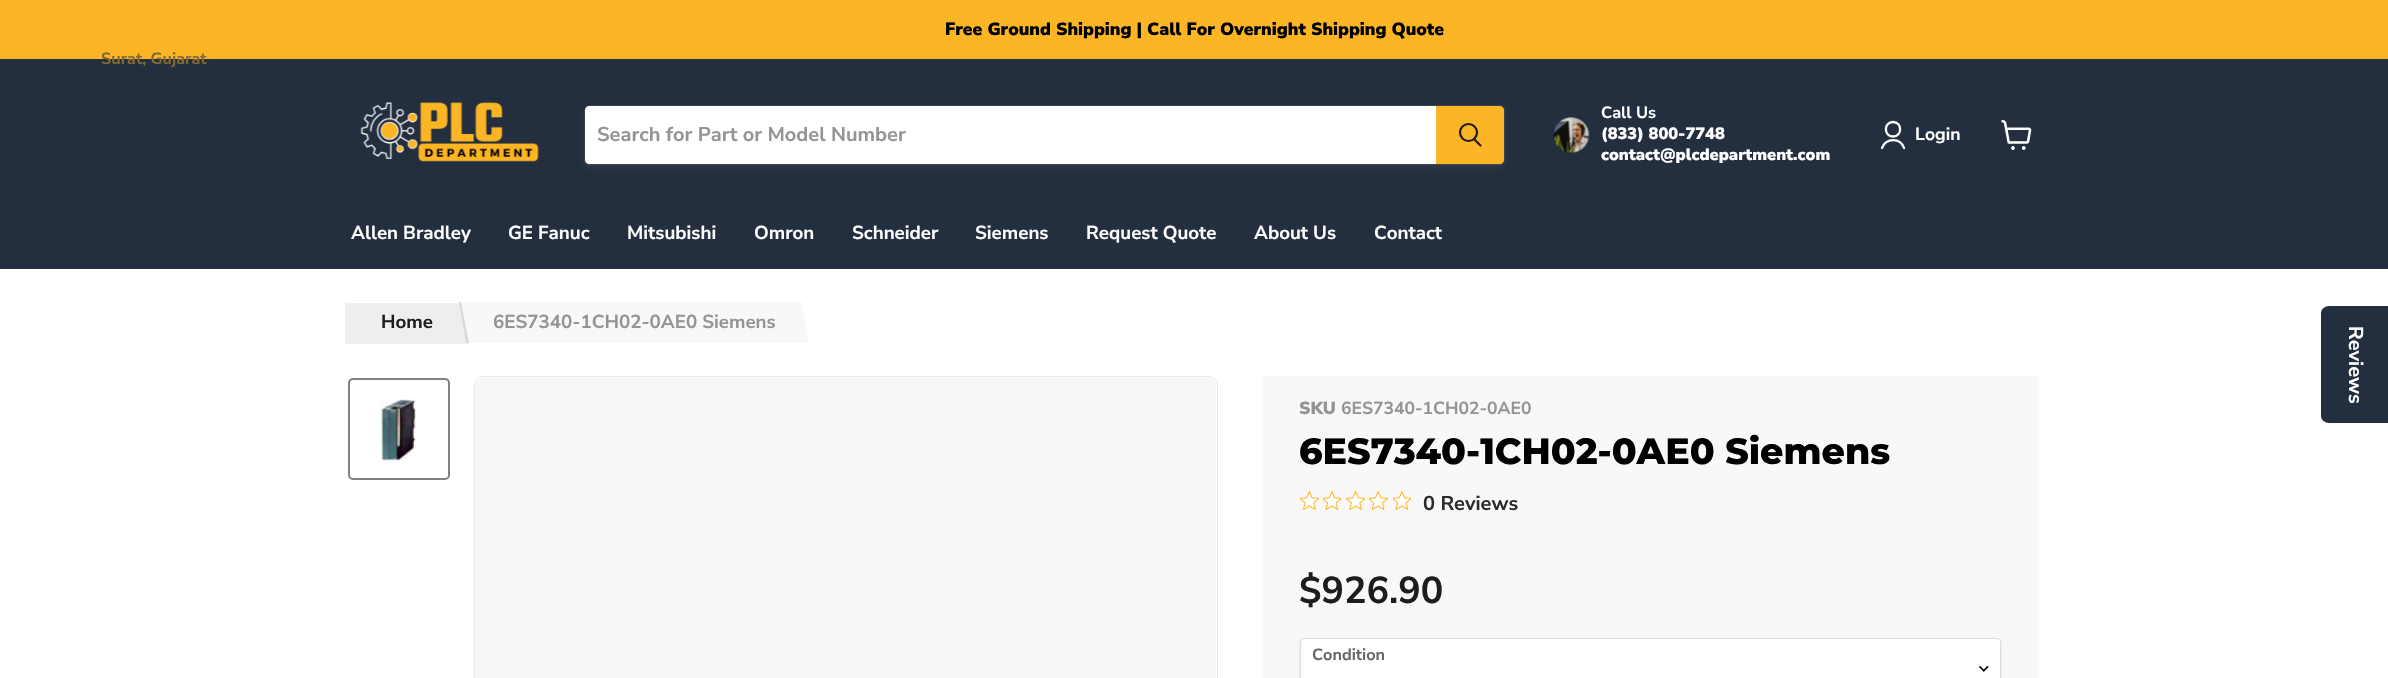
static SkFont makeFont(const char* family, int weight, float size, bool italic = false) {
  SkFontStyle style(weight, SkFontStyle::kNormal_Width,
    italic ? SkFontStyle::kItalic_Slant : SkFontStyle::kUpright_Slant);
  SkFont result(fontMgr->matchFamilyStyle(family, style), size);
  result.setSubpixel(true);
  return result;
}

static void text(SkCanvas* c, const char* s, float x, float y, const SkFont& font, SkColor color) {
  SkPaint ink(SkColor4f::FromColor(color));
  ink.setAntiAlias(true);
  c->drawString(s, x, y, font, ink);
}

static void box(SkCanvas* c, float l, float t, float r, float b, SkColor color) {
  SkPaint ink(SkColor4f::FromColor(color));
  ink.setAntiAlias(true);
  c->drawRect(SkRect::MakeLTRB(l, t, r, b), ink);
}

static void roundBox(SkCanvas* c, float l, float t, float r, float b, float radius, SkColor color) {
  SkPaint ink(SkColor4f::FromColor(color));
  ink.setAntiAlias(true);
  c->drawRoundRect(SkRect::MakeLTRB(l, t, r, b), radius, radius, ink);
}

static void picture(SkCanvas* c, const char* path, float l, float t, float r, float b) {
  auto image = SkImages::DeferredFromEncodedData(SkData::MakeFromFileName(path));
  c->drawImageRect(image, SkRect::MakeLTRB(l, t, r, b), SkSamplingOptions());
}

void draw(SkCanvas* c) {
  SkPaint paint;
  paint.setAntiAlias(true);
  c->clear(0xffffffff);
  box(c, 0, 0, 2388, 59, 0xfffcb525);
  SkFont face1 = makeFont("Nunito Sans", 900, 17.6f);
  text(c, "Free Ground Shipping | Call For Overnight Shipping Quote", 945, 35, face1, 0xff000000);
  box(c, 0, 59, 2388, 269, 0xff232f3e);
  SkFont face2 = makeFont("Nunito Sans", 200, 16.25f);
  text(c, "Surat, Gujarat", 101, 64, face2, 0xff826933);
  picture(c, "img_01.png", 360, 102, 539, 162);
  paint.setColor(0x1c808080);
  paint.setMaskFilter(SkMaskFilter::MakeBlur(kNormal_SkBlurStyle, 2));
  c->drawRoundRect(SkRect::MakeLTRB(584, 108, 1505, 168), 5, 5, paint);
  paint.setMaskFilter(nullptr);
  paint.setStyle(SkPaint::kStroke_Style);
  paint.setStrokeWidth(1);
  paint.setColor(0x33808080);
  c->drawRoundRect(SkRect::MakeLTRB(584.5f, 105.5f, 1504.5f, 164.5f), 4.5f, 4.5f, paint);
  paint.setStyle(SkPaint::kFill_Style);
  paint.setColor(0xffffffff);
  c->drawPath(SkPathBuilder().moveTo(589, 106).lineTo(1436, 106).lineTo(1436, 164).lineTo(589, 164).cubicTo(587, 164, 585, 162, 585, 160).lineTo(585, 110).cubicTo(585, 108, 587, 106, 589, 106).close().detach(), paint);
  SkFont face3 = makeFont("Nunito Sans", 200, 20);
  text(c, "Search for Part or Model Number", 597, 141, face3, 0xff949494);
  paint.setColor(0xfffcb525);
  c->drawPath(SkPathBuilder().moveTo(1436.5f, 106.5f).lineTo(1500, 106.5f).cubicTo(1502, 106.5f, 1503.5f, 108, 1503.5f, 110).lineTo(1503.5f, 160).cubicTo(1503.5f, 162, 1502, 163.5f, 1500, 163.5f).lineTo(1436.5f, 163.5f).close().detach(), paint);
  paint.setStyle(SkPaint::kStroke_Style);
  c->drawPath(SkPathBuilder().moveTo(1436.5f, 106.5f).lineTo(1500, 106.5f).cubicTo(1502, 106.5f, 1503.5f, 108, 1503.5f, 110).lineTo(1503.5f, 160).cubicTo(1503.5f, 162, 1502, 163.5f, 1500, 163.5f).lineTo(1436.5f, 163.5f).close().detach(), paint);
  paint.setStrokeWidth(2.2f);
  paint.setStrokeCap(SkPaint::kRound_Cap);
  paint.setColor(0xff1d1d1d);
  c->drawPath(SkPathBuilder().moveTo(1480.5f, 145.5f).lineTo(1474.5f, 139.5f).detach(), paint);
  paint.setStrokeCap(SkPaint::kButt_Cap);
  c->drawCircle(1468.5f, 132.5f, 8.5f, paint);
  picture(c, "img_02.png", 1553, 117, 1590, 154);
  SkFont face4 = makeFont("Nunito Sans", 200, 16.4f);
  text(c, "Call Us", 1601, 118, face4, 0xffffffff);
  SkFont face5 = makeFont("Nunito Sans", 900, 16.4f);
  text(c, "(833) 800-7748", 1601, 139, face5, 0xffffffff);
  text(c, "contact@plcdepartment.com", 1601, 160, face5, 0xffffffff);
  paint.setStrokeWidth(2.3f);
  paint.setStrokeCap(SkPaint::kRound_Cap);
  paint.setStrokeJoin(SkPaint::kRound_Join);
  paint.setColor(0xffffffff);
  c->drawPath(SkPathBuilder().moveTo(1893, 136.5f).cubicTo(1902.5f, 136.5f, 1902.5f, 122, 1893, 122).cubicTo(1883.5f, 122, 1883.5f, 136.5f, 1893, 136.5f).close().moveTo(1904, 148).cubicTo(1900.5f, 137.5f, 1886, 137.5f, 1882, 148).detach(), paint);
  SkFont face6 = makeFont("Nunito Sans", 200, 17.6f);
  text(c, "Login", 1915, 140, face6, 0xffffffff);
  picture(c, "img_03.png", 2001, 120, 2032, 150);
  SkFont face7 = makeFont("Nunito Sans", 200, 18.75f);
  text(c, "Allen Bradley", 351, 239, face7, 0xffffffff);
  text(c, "GE Fanuc", 508, 239, face7, 0xffffffff);
  text(c, "Mitsubishi", 627, 239, face7, 0xffffffff);
  text(c, "Omron", 754, 239, face7, 0xffffffff);
  text(c, "Schneider", 852, 239, face7, 0xffffffff);
  text(c, "Siemens", 975, 239, face7, 0xffffffff);
  text(c, "Request Quote", 1086, 239, face7, 0xffffffff);
  text(c, "About Us", 1254, 239, face7, 0xffffffff);
  text(c, "Contact", 1374, 239, face7, 0xffffffff);
  box(c, 345, 303, 469, 344, 0xffeeeeee);
  text(c, "Home", 381, 328, face7, 0xff1d1d1d);
  paint.setStyle(SkPaint::kFill_Style);
  paint.setColor(0xfff8f8f8);
  c->drawPath(SkPathBuilder().moveTo(459, 302).lineTo(802, 302).lineTo(809, 343).lineTo(466, 343).close().detach(), paint);
  paint.setColor(0xffdadada);
  c->drawPath(SkPathBuilder().moveTo(459, 302).lineTo(461, 302).lineTo(469, 343).lineTo(466, 343).close().detach(), paint);
  text(c, "6ES7340-1CH02-0AE0 Siemens", 493, 328, face7, 0xff949494);
  paint.setStyle(SkPaint::kStroke_Style);
  paint.setStrokeWidth(2);
  paint.setStrokeCap(SkPaint::kButt_Cap);
  paint.setStrokeJoin(SkPaint::kMiter_Join);
  paint.setColor(0xff818181);
  c->drawRoundRect(SkRect::MakeLTRB(349, 379, 449, 479), 4, 4, paint);
  picture(c, "img_04.png", 381, 399, 416, 462);
  paint.setStrokeWidth(1);
  paint.setColor(0xffe7e8e9);
  c->drawRoundRect(SkRect::MakeLTRB(474.5f, 376.5f, 1217.5f, 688.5f), 9.5f, 9.5f, paint);
  roundBox(c, 475, 378, 1216, 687, 9, 0xfff6f6f6);
  box(c, 1263, 376, 2039, 678, 0xfff8f8f8);
  SkFont face8 = makeFont("Nunito Sans", 900, 17.5f);
  text(c, "SKU", 1299, 414, face8, 0xff949494);
  SkFont face9 = makeFont("Nunito Sans", 200, 17.5f);
  text(c, "6ES7340-1CH02-0AE0", 1341, 414, face9, 0xff949494);
  SkFont face10 = makeFont("Montserrat", 800, 36.4f);
  text(c, "6ES7340-1CH02-0AE0 Siemens", 1299, 464, face10, 0xff000000);
  picture(c, "img_05.png", 1300, 491, 1319, 510);
  picture(c, "img_06.png", 1323, 491, 1341, 510);
  picture(c, "img_07.png", 1346, 491, 1365, 510);
  picture(c, "img_08.png", 1369, 491, 1388, 510);
  picture(c, "img_06.png", 1393, 491, 1411, 510);
  text(c, "0 Reviews", 1423, 510, face3, 0xff2c2c2c);
  SkFont face11 = makeFont("Nunito Sans", 200, 37.5f);
  text(c, "$926.90", 1299, 603, face11, 0xff1d1d1d);
  paint.setStyle(SkPaint::kFill_Style);
  paint.setColor(0x26000000);
  paint.setMaskFilter(SkMaskFilter::MakeBlur(kNormal_SkBlurStyle, 1));
  c->drawRoundRect(SkRect::MakeLTRB(1300, 639, 2001, 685), 4, 4, paint);
  paint.setMaskFilter(nullptr);
  paint.setColor(0xffffffff);
  c->drawRoundRect(SkRect::MakeLTRB(1300.5f, 638.5f, 2000.5f, 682.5f), 3.5f, 3.5f, paint);
  paint.setStyle(SkPaint::kStroke_Style);
  paint.setColor(0xffdddddd);
  c->drawRoundRect(SkRect::MakeLTRB(1300.5f, 638.5f, 2000.5f, 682.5f), 3.5f, 3.5f, paint);
  picture(c, "img_09.png", 1979, 665, 1989, 672);
  text(c, "Condition", 1312, 660, face2, 0xff666666);
  paint.setStyle(SkPaint::kFill_Style);
  paint.setColor(0xff232f3e);
  c->drawPath(SkPathBuilder().moveTo(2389, 306).lineTo(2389, 423).lineTo(2329, 423).cubicTo(2325, 423, 2321, 420, 2321, 416).lineTo(2321, 313).cubicTo(2321, 309, 2325, 306, 2329, 306).close().detach(), paint);
  c->save();
  c->rotate(90, 2349, 326);
  text(c, "Reviews", 2349, 326, face3, 0xffffffff);
  c->restore();
}
